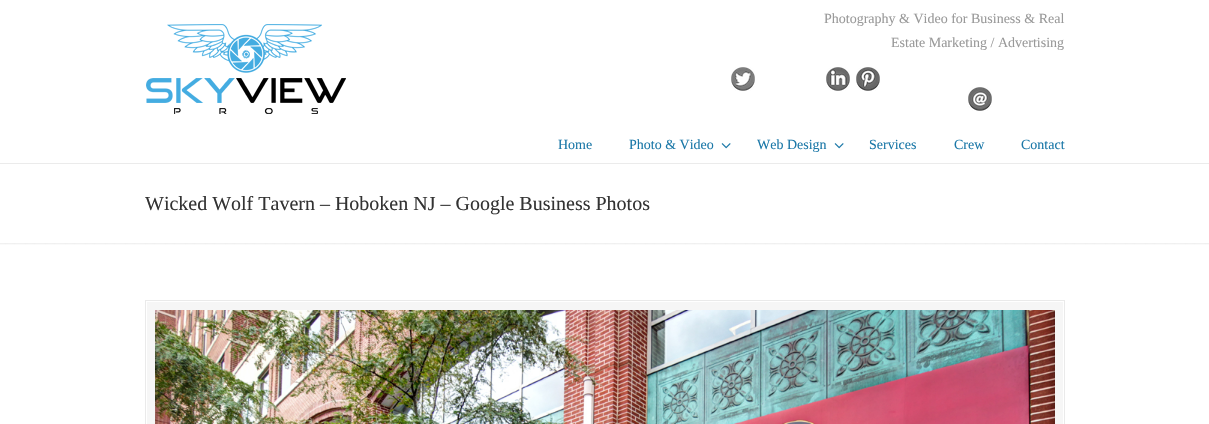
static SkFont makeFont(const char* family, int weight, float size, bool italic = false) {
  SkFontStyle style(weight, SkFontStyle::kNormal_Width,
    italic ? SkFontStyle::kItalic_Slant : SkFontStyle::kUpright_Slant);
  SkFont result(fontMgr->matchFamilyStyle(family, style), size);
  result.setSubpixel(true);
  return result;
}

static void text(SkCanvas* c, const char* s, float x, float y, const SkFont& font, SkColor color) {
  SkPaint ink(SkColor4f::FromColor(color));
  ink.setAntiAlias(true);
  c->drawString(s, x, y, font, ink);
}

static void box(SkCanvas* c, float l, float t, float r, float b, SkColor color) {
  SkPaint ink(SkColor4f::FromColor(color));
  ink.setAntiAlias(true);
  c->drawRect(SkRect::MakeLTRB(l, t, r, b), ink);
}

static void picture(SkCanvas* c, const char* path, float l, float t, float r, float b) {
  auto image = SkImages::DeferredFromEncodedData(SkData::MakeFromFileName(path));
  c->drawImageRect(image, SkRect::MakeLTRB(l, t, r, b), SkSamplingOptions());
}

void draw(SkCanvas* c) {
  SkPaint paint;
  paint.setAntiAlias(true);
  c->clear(0xffffffff);
  picture(c, "img_01.png", 146, 24, 346, 114);
  SkFont face1 = makeFont("Liberation Serif", 400, 14);
  text(c, "Photography & Video for Business & Real", 824, 23, face1, 0xff999999);
  text(c, "Estate Marketing / Advertising", 891, 47, face1, 0xff999999);
  picture(c, "img_02.png", 731, 67, 755, 91);
  picture(c, "img_03.png", 826, 67, 850, 91);
  picture(c, "img_04.png", 856, 67, 880, 91);
  picture(c, "img_05.png", 968, 87, 992, 111);
  text(c, "Home", 558, 149, face1, 0xff1b78a8);
  text(c, "Photo & Video", 629, 149, face1, 0xff1b78a8);
  picture(c, "img_06.png", 721, 143, 731, 149);
  text(c, "Web Design", 757, 149, face1, 0xff1b78a8);
  picture(c, "img_06.png", 834, 143, 844, 149);
  text(c, "Services", 869, 149, face1, 0xff1b78a8);
  text(c, "Crew", 954, 149, face1, 0xff1b78a8);
  text(c, "Contact", 1021, 149, face1, 0xff1b78a8);
  box(c, 0, 163, 1209, 164, 0xffebebeb);
  SkFont face2 = makeFont("Liberation Serif", 400, 20);
  text(c, "Wicked Wolf Tavern – Hoboken NJ – Google Business Photos", 145, 210, face2, 0xff333333);
  picture(c, "img_07.png", 0, 243, 1209, 245);
  box(c, 147, 302, 1063, 424, 0xfff6f6f6);
  paint.setStyle(SkPaint::kStroke_Style);
  paint.setStrokeWidth(1);
  paint.setColor(0xffeaeaea);
  c->drawRect(SkRect::MakeLTRB(145.5f, 300.5f, 1064.5f, 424.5f), paint);
  picture(c, "img_08.png", 155, 310, 1055, 424);
}
